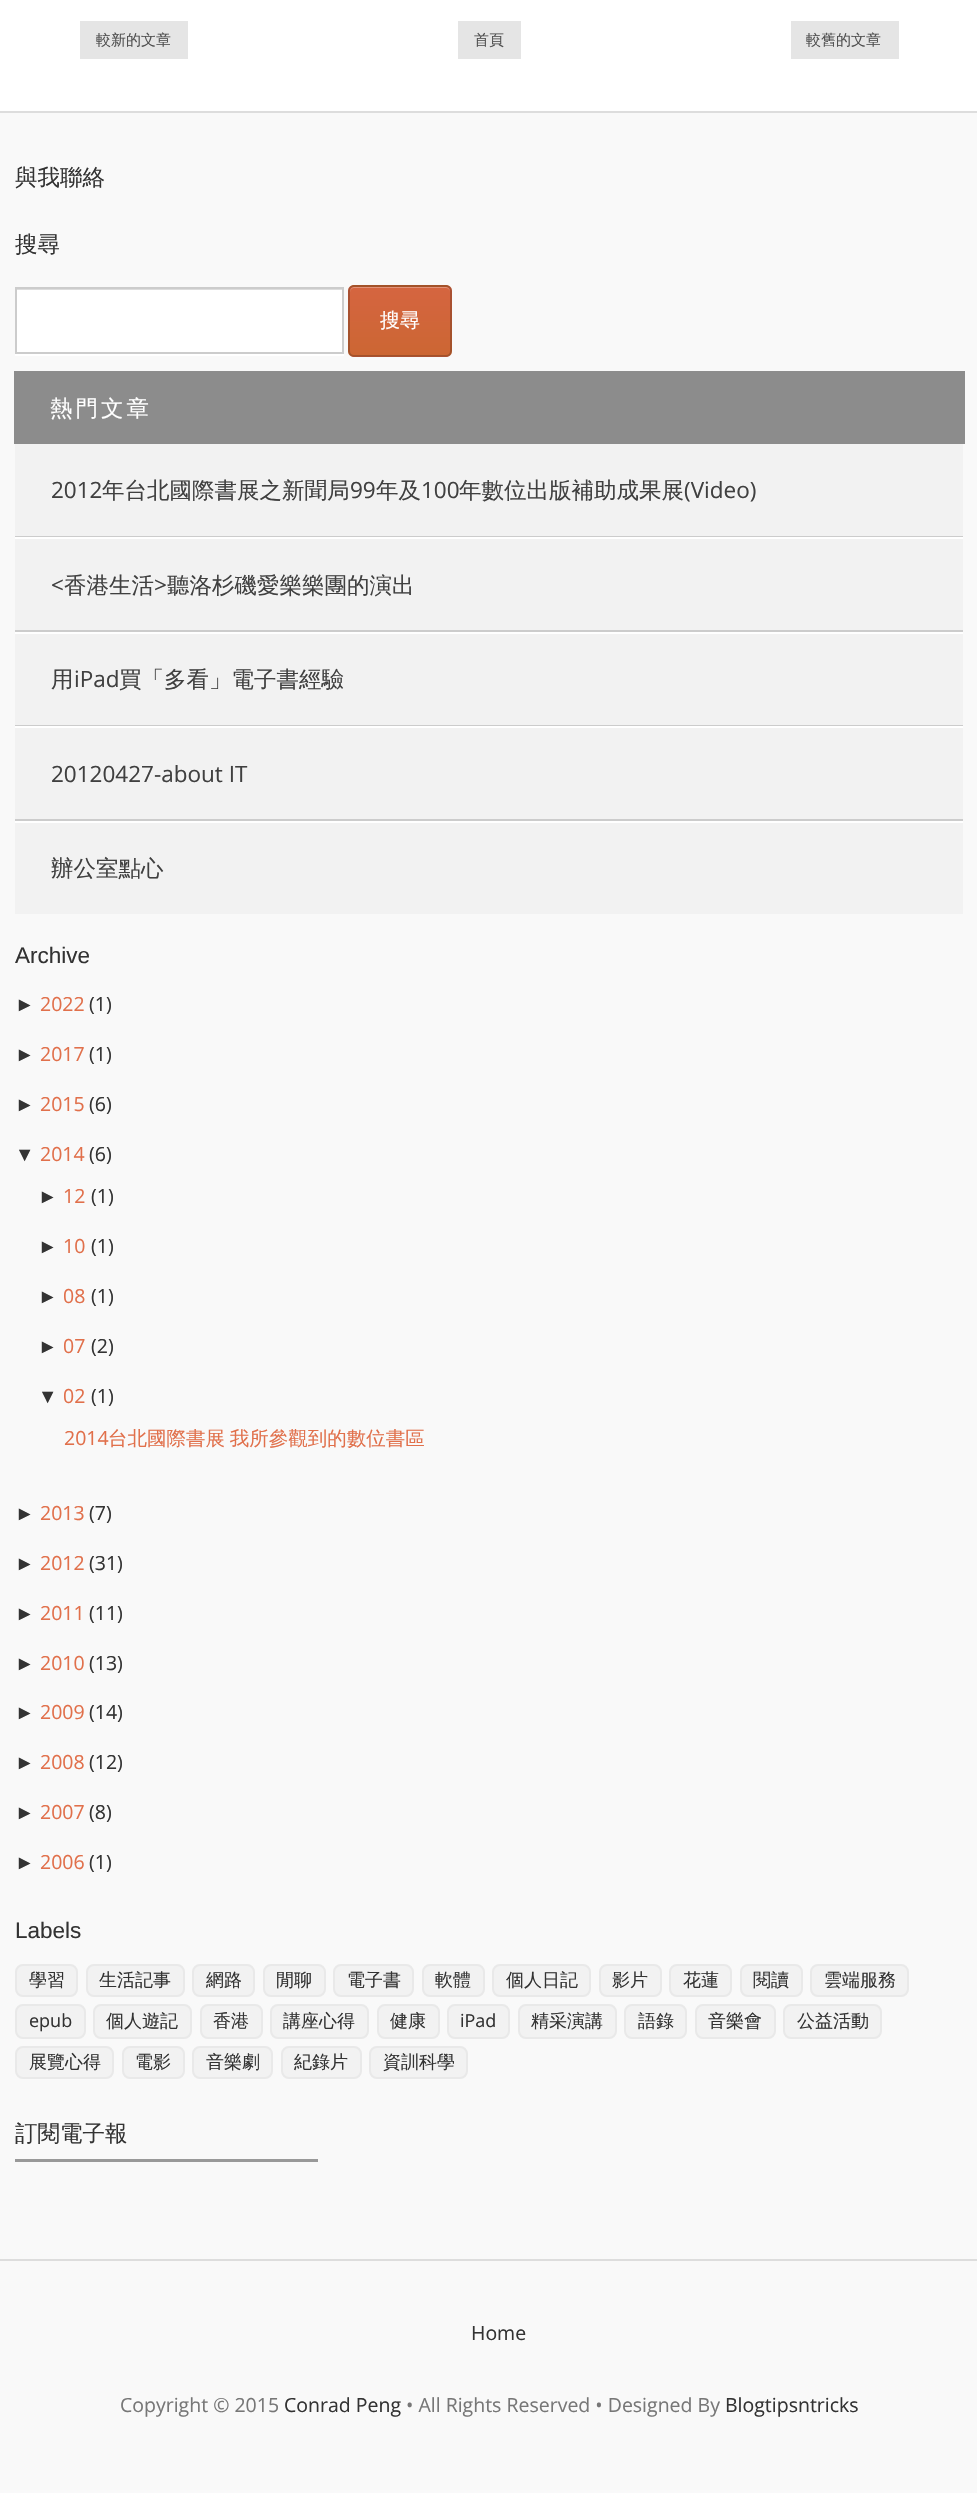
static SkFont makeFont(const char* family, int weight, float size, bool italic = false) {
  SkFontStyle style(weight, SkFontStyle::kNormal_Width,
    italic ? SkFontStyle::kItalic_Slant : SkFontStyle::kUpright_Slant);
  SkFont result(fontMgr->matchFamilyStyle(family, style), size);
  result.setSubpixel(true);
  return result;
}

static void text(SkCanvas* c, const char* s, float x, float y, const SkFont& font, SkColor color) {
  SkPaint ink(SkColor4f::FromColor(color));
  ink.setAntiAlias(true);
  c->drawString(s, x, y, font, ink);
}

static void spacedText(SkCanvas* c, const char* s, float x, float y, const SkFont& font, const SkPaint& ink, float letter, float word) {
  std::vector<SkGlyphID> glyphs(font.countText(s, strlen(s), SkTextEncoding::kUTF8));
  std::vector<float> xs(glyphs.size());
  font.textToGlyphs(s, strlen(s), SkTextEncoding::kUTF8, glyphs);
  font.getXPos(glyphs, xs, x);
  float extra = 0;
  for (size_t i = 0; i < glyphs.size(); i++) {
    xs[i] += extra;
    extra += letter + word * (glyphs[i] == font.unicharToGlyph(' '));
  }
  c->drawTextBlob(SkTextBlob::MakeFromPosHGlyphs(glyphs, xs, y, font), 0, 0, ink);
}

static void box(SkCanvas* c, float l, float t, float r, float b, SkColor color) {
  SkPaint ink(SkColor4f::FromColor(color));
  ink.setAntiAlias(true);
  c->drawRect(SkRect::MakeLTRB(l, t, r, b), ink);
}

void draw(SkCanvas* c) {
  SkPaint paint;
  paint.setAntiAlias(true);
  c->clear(0xfff9f9f9);
  box(c, 0, 0, 977, 111, 0xffffffff);
  box(c, 0, 111, 977, 113, 0xffdddddd);
  box(c, 80, 21, 188, 59, 0xffe5e5e5);
  SkFont face1 = makeFont("WenQuanYi Zen Hei", 500, 15);
  text(c, "較新的文章", 96, 45, face1, 0xff505050);
  box(c, 458, 21, 521, 59, 0xffe5e5e5);
  text(c, "首頁", 474, 45, face1, 0xff505050);
  box(c, 791, 21, 899, 59, 0xffe5e5e5);
  text(c, "較舊的文章", 806, 45, face1, 0xff505050);
  SkFont face2 = makeFont("WenQuanYi Zen Hei", 500, 22.5f);
  text(c, "與我聯絡", 15, 185, face2, 0xff333333);
  text(c, "搜尋", 15, 252, face2, 0xff333333);
  paint.setColor(0xffffffff);
  c->drawPath(SkPathBuilder().moveTo(15, 354).lineTo(15, 356).lineTo(344, 356).lineTo(344, 288).lineTo(344, 354).close().detach(), paint);
  box(c, 17, 290, 342, 352, 0xffffffff);
  box(c, 17, 289, 342, 290, 0xffdddddd);
  paint.setStyle(SkPaint::kStroke_Style);
  paint.setStrokeWidth(2);
  paint.setColor(0xffcccccc);
  c->drawRect(SkRect::MakeLTRB(16, 288, 343, 353), paint);
  c->save();
  c->clipPath(SkPathBuilder().moveTo(354, 285).lineTo(446, 285).cubicTo(449.5f, 285, 452, 287.5f, 452, 291).lineTo(452, 351).cubicTo(452, 354.5f, 449.5f, 357, 446, 357).lineTo(354, 357).cubicTo(350.5f, 357, 348, 354.5f, 348, 351).lineTo(348, 291).cubicTo(348, 287.5f, 350.5f, 285, 354, 285).close().detach(), true);
  paint.setStyle(SkPaint::kFill_Style);
  {
    const SkColor colors[] = {0xffd56540, 0xffcc6633};
    const float stops[] = {0, 1};
    const SkPoint ends[] = {{400, 218}, {400, 287}};
    paint.setShader(SkGradientShader::MakeLinear(ends, colors, stops, 2, SkTileMode::kClamp));
    paint.setAlpha(255);
  }
  c->drawRect(SkRect::MakeLTRB(348, 285, 452, 287), paint);
  {
    const SkColor colors[] = {0xffd56540, 0xffcc6633};
    const float stops[] = {0, 1};
    const SkPoint ends[] = {{400, 287}, {400, 356}};
    paint.setShader(SkGradientShader::MakeLinear(ends, colors, stops, 2, SkTileMode::kClamp));
    paint.setAlpha(255);
  }
  c->drawRect(SkRect::MakeLTRB(348, 287, 452, 356), paint);
  {
    const SkColor colors[] = {0xffd56540, 0xffcc6633};
    const float stops[] = {0, 1};
    const SkPoint ends[] = {{400, 356}, {400, 425}};
    paint.setShader(SkGradientShader::MakeLinear(ends, colors, stops, 2, SkTileMode::kClamp));
    paint.setAlpha(255);
  }
  c->drawRect(SkRect::MakeLTRB(348, 356, 452, 357), paint);
  c->restore();
  paint.setShader(nullptr);
  paint.setColor(0xffe29379);
  c->drawPath(SkPathBuilder().moveTo(354, 288).lineTo(446, 288).cubicTo(448, 288, 450, 290, 450, 292).cubicTo(450, 289, 448, 287, 445, 287).lineTo(355, 287).cubicTo(352, 287, 350, 289, 350, 292).cubicTo(350, 290, 352, 288, 354, 288).close().detach(), paint);
  paint.setStyle(SkPaint::kStroke_Style);
  paint.setColor(0x33000000);
  c->drawRoundRect(SkRect::MakeLTRB(349, 286, 451, 356), 5, 5, paint);
  SkFont face3 = makeFont("WenQuanYi Zen Hei", 500, 20);
  text(c, "搜尋", 380, 327, face3, 0xffffffff);
  box(c, 15, 444, 963, 914, 0xfff2f2f2);
  box(c, 14, 371, 965, 444, 0xff8c8c8c);
  paint.setStyle(SkPaint::kFill_Style);
  paint.setColor(0xffffffff);
  spacedText(c, "熱門文章", 50, 416, face2, paint, 3, 0);
  box(c, 15, 536, 963, 537, 0xffcccccc);
  SkFont face4 = makeFont("Open Sans", 400, 22.5f);
  text(c, "2012", 51, 498, face4, 0xff404040);
  text(c, "年台北國際書展之新聞局", 102, 498, face2, 0xff404040);
  text(c, "99", 350, 498, face4, 0xff404040);
  text(c, "年及", 376, 498, face2, 0xff404040);
  text(c, "100", 421, 498, face4, 0xff404040);
  text(c, "年數位出版補助成果展", 459, 498, face2, 0xff404040);
  text(c, "(Video)", 684, 498, face4, 0xff404040);
  box(c, 15, 537, 963, 539, 0xffffffff);
  box(c, 15, 630, 963, 632, 0xffcccccc);
  text(c, "<", 51, 593, face4, 0xff404040);
  text(c, "香港生活", 64, 593, face2, 0xff404040);
  text(c, ">", 154, 593, face4, 0xff404040);
  text(c, "聽洛杉磯愛樂樂團的演出", 167, 593, face2, 0xff404040);
  box(c, 15, 632, 963, 634, 0xffffffff);
  box(c, 15, 725, 963, 726, 0xffcccccc);
  text(c, "用", 51, 687, face2, 0xff404040);
  text(c, "iPad", 74, 687, face4, 0xff404040);
  text(c, "買「多看」電子書經驗", 119, 687, face2, 0xff404040);
  box(c, 15, 726, 963, 728, 0xffffffff);
  box(c, 15, 819, 963, 821, 0xffcccccc);
  text(c, "20120427-about IT", 51, 782, face4, 0xff404040);
  box(c, 15, 821, 963, 823, 0xffffffff);
  text(c, "辦公室點心", 51, 876, face2, 0xff404040);
  SkFont face5 = makeFont("Liberation Sans", 400, 22.5f);
  text(c, "Archive", 15, 963, face5, 0xff333333);
  SkFont face6 = makeFont("Liberation Sans", 400, 19.5f);
  text(c, "►", 15, 1011, face6, 0xff333333);
  SkFont face7 = makeFont("Open Sans", 400, 19.5f);
  text(c, "2022", 40, 1011, face7, 0xffe1704b);
  text(c, "(1)", 89, 1011, face7, 0xff333333);
  text(c, "►", 15, 1061, face6, 0xff333333);
  text(c, "2017", 40, 1061, face7, 0xffe1704b);
  text(c, "(1)", 89, 1061, face7, 0xff333333);
  text(c, "►", 15, 1111, face6, 0xff333333);
  text(c, "2015", 40, 1111, face7, 0xffe1704b);
  text(c, "(6)", 89, 1111, face7, 0xff333333);
  text(c, "▼", 15, 1161, face6, 0xff333333);
  text(c, "2014", 40, 1161, face7, 0xffe1704b);
  text(c, "(6)", 89, 1161, face7, 0xff333333);
  text(c, "►", 38, 1203, face6, 0xff333333);
  text(c, "12", 63, 1203, face7, 0xffe1704b);
  text(c, "(1)", 91, 1203, face7, 0xff333333);
  text(c, "►", 38, 1253, face6, 0xff333333);
  text(c, "10", 63, 1253, face7, 0xffe1704b);
  text(c, "(1)", 91, 1253, face7, 0xff333333);
  text(c, "►", 38, 1303, face6, 0xff333333);
  text(c, "08", 63, 1303, face7, 0xffe1704b);
  text(c, "(1)", 91, 1303, face7, 0xff333333);
  text(c, "►", 38, 1353, face6, 0xff333333);
  text(c, "07", 63, 1353, face7, 0xffe1704b);
  text(c, "(2)", 91, 1353, face7, 0xff333333);
  text(c, "▼", 38, 1403, face6, 0xff333333);
  text(c, "02", 63, 1403, face7, 0xffe1704b);
  text(c, "(1)", 91, 1403, face7, 0xff333333);
  text(c, "2014", 64, 1445, face7, 0xffe1704b);
  SkFont face8 = makeFont("WenQuanYi Zen Hei", 500, 19.5f);
  paint.setColor(0xffe1704b);
  spacedText(c, "台北國際書展 我所參觀到的數位書區", 108, 1445, face8, paint, 0, -1);
  text(c, "►", 15, 1520, face6, 0xff333333);
  text(c, "2013", 40, 1520, face7, 0xffe1704b);
  text(c, "(7)", 89, 1520, face7, 0xff333333);
  text(c, "►", 15, 1570, face6, 0xff333333);
  text(c, "2012", 40, 1570, face7, 0xffe1704b);
  text(c, "(31)", 89, 1570, face7, 0xff333333);
  text(c, "►", 15, 1620, face6, 0xff333333);
  text(c, "2011", 40, 1620, face7, 0xffe1704b);
  text(c, "(11)", 89, 1620, face7, 0xff333333);
  text(c, "►", 15, 1670, face6, 0xff333333);
  text(c, "2010", 40, 1670, face7, 0xffe1704b);
  text(c, "(13)", 89, 1670, face7, 0xff333333);
  text(c, "►", 15, 1719, face6, 0xff333333);
  text(c, "2009", 40, 1719, face7, 0xffe1704b);
  text(c, "(14)", 89, 1719, face7, 0xff333333);
  text(c, "►", 15, 1769, face6, 0xff333333);
  text(c, "2008", 40, 1769, face7, 0xffe1704b);
  text(c, "(12)", 89, 1769, face7, 0xff333333);
  text(c, "►", 15, 1819, face6, 0xff333333);
  text(c, "2007", 40, 1819, face7, 0xffe1704b);
  text(c, "(8)", 89, 1819, face7, 0xff333333);
  text(c, "►", 15, 1869, face6, 0xff333333);
  text(c, "2006", 40, 1869, face7, 0xffe1704b);
  text(c, "(1)", 89, 1869, face7, 0xff333333);
  text(c, "Labels", 15, 1938, face5, 0xff333333);
  paint.setColor(0xfff2f2f2);
  c->drawRoundRect(SkRect::MakeLTRB(16, 1965, 77, 1996), 7, 7, paint);
  paint.setStyle(SkPaint::kStroke_Style);
  paint.setColor(0xffe9e9e9);
  c->drawRoundRect(SkRect::MakeLTRB(16, 1965, 77, 1996), 7, 7, paint);
  SkFont face9 = makeFont("WenQuanYi Zen Hei", 500, 18);
  text(c, "學習", 29, 1986, face9, 0xff333333);
  paint.setStyle(SkPaint::kFill_Style);
  paint.setColor(0xfff2f2f2);
  c->drawRoundRect(SkRect::MakeLTRB(87, 1965, 184, 1996), 7, 7, paint);
  paint.setStyle(SkPaint::kStroke_Style);
  paint.setColor(0xffe9e9e9);
  c->drawRoundRect(SkRect::MakeLTRB(87, 1965, 184, 1996), 7, 7, paint);
  text(c, "生活記事", 99, 1986, face9, 0xff333333);
  paint.setStyle(SkPaint::kFill_Style);
  paint.setColor(0xfff2f2f2);
  c->drawRoundRect(SkRect::MakeLTRB(193, 1965, 254, 1996), 7, 7, paint);
  paint.setStyle(SkPaint::kStroke_Style);
  paint.setColor(0xffe9e9e9);
  c->drawRoundRect(SkRect::MakeLTRB(193, 1965, 254, 1996), 7, 7, paint);
  text(c, "網路", 206, 1986, face9, 0xff333333);
  paint.setStyle(SkPaint::kFill_Style);
  paint.setColor(0xfff2f2f2);
  c->drawRoundRect(SkRect::MakeLTRB(264, 1965, 325, 1996), 7, 7, paint);
  paint.setStyle(SkPaint::kStroke_Style);
  paint.setColor(0xffe9e9e9);
  c->drawRoundRect(SkRect::MakeLTRB(264, 1965, 325, 1996), 7, 7, paint);
  text(c, "閒聊", 276, 1986, face9, 0xff333333);
  paint.setStyle(SkPaint::kFill_Style);
  paint.setColor(0xfff2f2f2);
  c->drawRoundRect(SkRect::MakeLTRB(334, 1965, 413, 1996), 7, 7, paint);
  paint.setStyle(SkPaint::kStroke_Style);
  paint.setColor(0xffe9e9e9);
  c->drawRoundRect(SkRect::MakeLTRB(334, 1965, 413, 1996), 7, 7, paint);
  text(c, "電子書", 347, 1986, face9, 0xff333333);
  paint.setStyle(SkPaint::kFill_Style);
  paint.setColor(0xfff2f2f2);
  c->drawRoundRect(SkRect::MakeLTRB(423, 1965, 484, 1996), 7, 7, paint);
  paint.setStyle(SkPaint::kStroke_Style);
  paint.setColor(0xffe9e9e9);
  c->drawRoundRect(SkRect::MakeLTRB(423, 1965, 484, 1996), 7, 7, paint);
  text(c, "軟體", 435, 1986, face9, 0xff333333);
  paint.setStyle(SkPaint::kFill_Style);
  paint.setColor(0xfff2f2f2);
  c->drawRoundRect(SkRect::MakeLTRB(493, 1965, 590, 1996), 7, 7, paint);
  paint.setStyle(SkPaint::kStroke_Style);
  paint.setColor(0xffe9e9e9);
  c->drawRoundRect(SkRect::MakeLTRB(493, 1965, 590, 1996), 7, 7, paint);
  text(c, "個人日記", 506, 1986, face9, 0xff333333);
  paint.setStyle(SkPaint::kFill_Style);
  paint.setColor(0xfff2f2f2);
  c->drawRoundRect(SkRect::MakeLTRB(600, 1965, 661, 1996), 7, 7, paint);
  paint.setStyle(SkPaint::kStroke_Style);
  paint.setColor(0xffe9e9e9);
  c->drawRoundRect(SkRect::MakeLTRB(600, 1965, 661, 1996), 7, 7, paint);
  text(c, "影片", 612, 1986, face9, 0xff333333);
  paint.setStyle(SkPaint::kFill_Style);
  paint.setColor(0xfff2f2f2);
  c->drawRoundRect(SkRect::MakeLTRB(670, 1965, 731, 1996), 7, 7, paint);
  paint.setStyle(SkPaint::kStroke_Style);
  paint.setColor(0xffe9e9e9);
  c->drawRoundRect(SkRect::MakeLTRB(670, 1965, 731, 1996), 7, 7, paint);
  text(c, "花蓮", 683, 1986, face9, 0xff333333);
  paint.setStyle(SkPaint::kFill_Style);
  paint.setColor(0xfff2f2f2);
  c->drawRoundRect(SkRect::MakeLTRB(741, 1965, 802, 1996), 7, 7, paint);
  paint.setStyle(SkPaint::kStroke_Style);
  paint.setColor(0xffe9e9e9);
  c->drawRoundRect(SkRect::MakeLTRB(741, 1965, 802, 1996), 7, 7, paint);
  text(c, "閱讀", 753, 1986, face9, 0xff333333);
  paint.setStyle(SkPaint::kFill_Style);
  paint.setColor(0xfff2f2f2);
  c->drawRoundRect(SkRect::MakeLTRB(811, 1965, 908, 1996), 7, 7, paint);
  paint.setStyle(SkPaint::kStroke_Style);
  paint.setColor(0xffe9e9e9);
  c->drawRoundRect(SkRect::MakeLTRB(811, 1965, 908, 1996), 7, 7, paint);
  text(c, "雲端服務", 824, 1986, face9, 0xff333333);
  paint.setStyle(SkPaint::kFill_Style);
  paint.setColor(0xfff2f2f2);
  c->drawRoundRect(SkRect::MakeLTRB(16, 2005, 85, 2038), 7, 7, paint);
  paint.setStyle(SkPaint::kStroke_Style);
  paint.setColor(0xffe9e9e9);
  c->drawRoundRect(SkRect::MakeLTRB(16, 2005, 85, 2038), 7, 7, paint);
  SkFont face10 = makeFont("Open Sans", 400, 18);
  text(c, "epub", 29, 2027, face10, 0xff333333);
  paint.setStyle(SkPaint::kFill_Style);
  paint.setColor(0xfff2f2f2);
  c->drawRoundRect(SkRect::MakeLTRB(94, 2005, 191, 2038), 7, 7, paint);
  paint.setStyle(SkPaint::kStroke_Style);
  paint.setColor(0xffe9e9e9);
  c->drawRoundRect(SkRect::MakeLTRB(94, 2005, 191, 2038), 7, 7, paint);
  text(c, "個人遊記", 106, 2027, face9, 0xff333333);
  paint.setStyle(SkPaint::kFill_Style);
  paint.setColor(0xfff2f2f2);
  c->drawRoundRect(SkRect::MakeLTRB(201, 2005, 262, 2038), 7, 7, paint);
  paint.setStyle(SkPaint::kStroke_Style);
  paint.setColor(0xffe9e9e9);
  c->drawRoundRect(SkRect::MakeLTRB(201, 2005, 262, 2038), 7, 7, paint);
  text(c, "香港", 213, 2027, face9, 0xff333333);
  paint.setStyle(SkPaint::kFill_Style);
  paint.setColor(0xfff2f2f2);
  c->drawRoundRect(SkRect::MakeLTRB(271, 2005, 368, 2038), 7, 7, paint);
  paint.setStyle(SkPaint::kStroke_Style);
  paint.setColor(0xffe9e9e9);
  c->drawRoundRect(SkRect::MakeLTRB(271, 2005, 368, 2038), 7, 7, paint);
  text(c, "講座心得", 283, 2027, face9, 0xff333333);
  paint.setStyle(SkPaint::kFill_Style);
  paint.setColor(0xfff2f2f2);
  c->drawRoundRect(SkRect::MakeLTRB(378, 2005, 439, 2038), 7, 7, paint);
  paint.setStyle(SkPaint::kStroke_Style);
  paint.setColor(0xffe9e9e9);
  c->drawRoundRect(SkRect::MakeLTRB(378, 2005, 439, 2038), 7, 7, paint);
  text(c, "健康", 390, 2027, face9, 0xff333333);
  paint.setStyle(SkPaint::kFill_Style);
  paint.setColor(0xfff2f2f2);
  c->drawRoundRect(SkRect::MakeLTRB(448, 2005, 509, 2038), 7, 7, paint);
  paint.setStyle(SkPaint::kStroke_Style);
  paint.setColor(0xffe9e9e9);
  c->drawRoundRect(SkRect::MakeLTRB(448, 2005, 509, 2038), 7, 7, paint);
  text(c, "iPad", 460, 2027, face10, 0xff333333);
  paint.setStyle(SkPaint::kFill_Style);
  paint.setColor(0xfff2f2f2);
  c->drawRoundRect(SkRect::MakeLTRB(519, 2005, 616, 2038), 7, 7, paint);
  paint.setStyle(SkPaint::kStroke_Style);
  paint.setColor(0xffe9e9e9);
  c->drawRoundRect(SkRect::MakeLTRB(519, 2005, 616, 2038), 7, 7, paint);
  text(c, "精采演講", 531, 2027, face9, 0xff333333);
  paint.setStyle(SkPaint::kFill_Style);
  paint.setColor(0xfff2f2f2);
  c->drawRoundRect(SkRect::MakeLTRB(625, 2005, 686, 2038), 7, 7, paint);
  paint.setStyle(SkPaint::kStroke_Style);
  paint.setColor(0xffe9e9e9);
  c->drawRoundRect(SkRect::MakeLTRB(625, 2005, 686, 2038), 7, 7, paint);
  text(c, "語錄", 638, 2027, face9, 0xff333333);
  paint.setStyle(SkPaint::kFill_Style);
  paint.setColor(0xfff2f2f2);
  c->drawRoundRect(SkRect::MakeLTRB(696, 2005, 775, 2038), 7, 7, paint);
  paint.setStyle(SkPaint::kStroke_Style);
  paint.setColor(0xffe9e9e9);
  c->drawRoundRect(SkRect::MakeLTRB(696, 2005, 775, 2038), 7, 7, paint);
  text(c, "音樂會", 708, 2027, face9, 0xff333333);
  paint.setStyle(SkPaint::kFill_Style);
  paint.setColor(0xfff2f2f2);
  c->drawRoundRect(SkRect::MakeLTRB(784, 2005, 881, 2038), 7, 7, paint);
  paint.setStyle(SkPaint::kStroke_Style);
  paint.setColor(0xffe9e9e9);
  c->drawRoundRect(SkRect::MakeLTRB(784, 2005, 881, 2038), 7, 7, paint);
  text(c, "公益活動", 797, 2027, face9, 0xff333333);
  paint.setStyle(SkPaint::kFill_Style);
  paint.setColor(0xfff2f2f2);
  c->drawRoundRect(SkRect::MakeLTRB(16, 2047, 113, 2078), 7, 7, paint);
  paint.setStyle(SkPaint::kStroke_Style);
  paint.setColor(0xffe9e9e9);
  c->drawRoundRect(SkRect::MakeLTRB(16, 2047, 113, 2078), 7, 7, paint);
  text(c, "展覽心得", 29, 2068, face9, 0xff333333);
  paint.setStyle(SkPaint::kFill_Style);
  paint.setColor(0xfff2f2f2);
  c->drawRoundRect(SkRect::MakeLTRB(123, 2047, 184, 2078), 7, 7, paint);
  paint.setStyle(SkPaint::kStroke_Style);
  paint.setColor(0xffe9e9e9);
  c->drawRoundRect(SkRect::MakeLTRB(123, 2047, 184, 2078), 7, 7, paint);
  text(c, "電影", 135, 2068, face9, 0xff333333);
  paint.setStyle(SkPaint::kFill_Style);
  paint.setColor(0xfff2f2f2);
  c->drawRoundRect(SkRect::MakeLTRB(193, 2047, 272, 2078), 7, 7, paint);
  paint.setStyle(SkPaint::kStroke_Style);
  paint.setColor(0xffe9e9e9);
  c->drawRoundRect(SkRect::MakeLTRB(193, 2047, 272, 2078), 7, 7, paint);
  text(c, "音樂劇", 206, 2068, face9, 0xff333333);
  paint.setStyle(SkPaint::kFill_Style);
  paint.setColor(0xfff2f2f2);
  c->drawRoundRect(SkRect::MakeLTRB(282, 2047, 361, 2078), 7, 7, paint);
  paint.setStyle(SkPaint::kStroke_Style);
  paint.setColor(0xffe9e9e9);
  c->drawRoundRect(SkRect::MakeLTRB(282, 2047, 361, 2078), 7, 7, paint);
  text(c, "紀錄片", 294, 2068, face9, 0xff333333);
  paint.setStyle(SkPaint::kFill_Style);
  paint.setColor(0xfff2f2f2);
  c->drawRoundRect(SkRect::MakeLTRB(370, 2047, 467, 2078), 7, 7, paint);
  paint.setStyle(SkPaint::kStroke_Style);
  paint.setColor(0xffe9e9e9);
  c->drawRoundRect(SkRect::MakeLTRB(370, 2047, 467, 2078), 7, 7, paint);
  text(c, "資訓科學", 383, 2068, face9, 0xff333333);
  text(c, "訂閱電子報", 15, 2141, face2, 0xff333333);
  box(c, 15, 2159, 318, 2162, 0xff999999);
  box(c, 0, 2259, 977, 2261, 0xffdddddd);
  text(c, "Home", 471, 2340, face7, 0xff333333);
  text(c, "Copyright © 2015", 120, 2412, face7, 0xff777777);
  text(c, "Conrad Peng", 284, 2412, face7, 0xff333333);
  text(c, "• All Rights Reserved • Designed By", 406, 2412, face7, 0xff777777);
  text(c, "Blogtipsntricks", 725, 2412, face7, 0xff333333);
}
